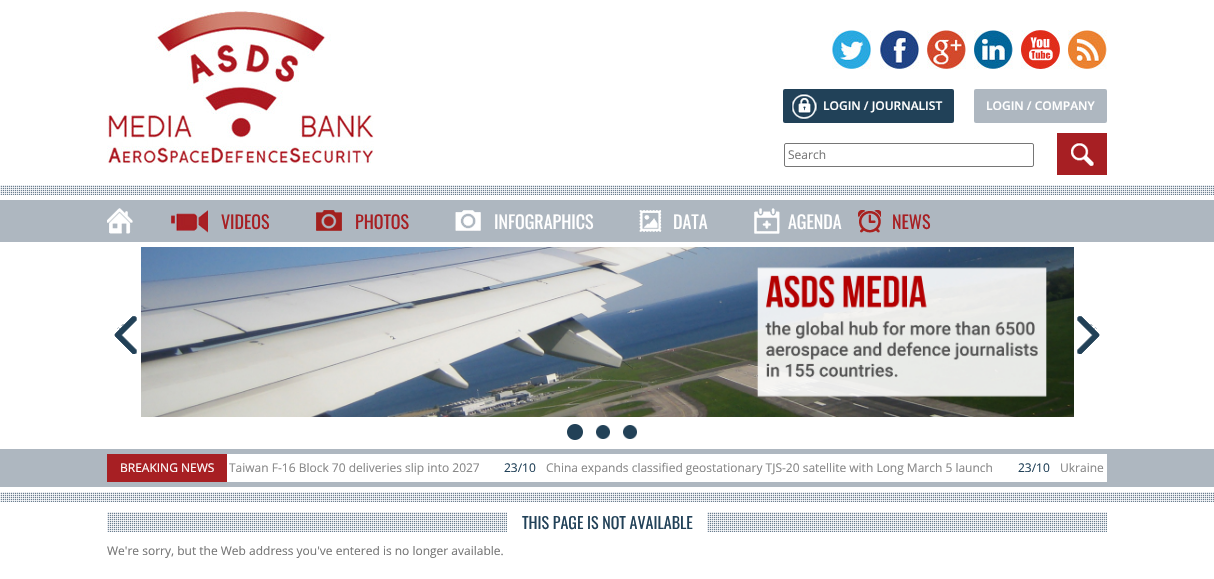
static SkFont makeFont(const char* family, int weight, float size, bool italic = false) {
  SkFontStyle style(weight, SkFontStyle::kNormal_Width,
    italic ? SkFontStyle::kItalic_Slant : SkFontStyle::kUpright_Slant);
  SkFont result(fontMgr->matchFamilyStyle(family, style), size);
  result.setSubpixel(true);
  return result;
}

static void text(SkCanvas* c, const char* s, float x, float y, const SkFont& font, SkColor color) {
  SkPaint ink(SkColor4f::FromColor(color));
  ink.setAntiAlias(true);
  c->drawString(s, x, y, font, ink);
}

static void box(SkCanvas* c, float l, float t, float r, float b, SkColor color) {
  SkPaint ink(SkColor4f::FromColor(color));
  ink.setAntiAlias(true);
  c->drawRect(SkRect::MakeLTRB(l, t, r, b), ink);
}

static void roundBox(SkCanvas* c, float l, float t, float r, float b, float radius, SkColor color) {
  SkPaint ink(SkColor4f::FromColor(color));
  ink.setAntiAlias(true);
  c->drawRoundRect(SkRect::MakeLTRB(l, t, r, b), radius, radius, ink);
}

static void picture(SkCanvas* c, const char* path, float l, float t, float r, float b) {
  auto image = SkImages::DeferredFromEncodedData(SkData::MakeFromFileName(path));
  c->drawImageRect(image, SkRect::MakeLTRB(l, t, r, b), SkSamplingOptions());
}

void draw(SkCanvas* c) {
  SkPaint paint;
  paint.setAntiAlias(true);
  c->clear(0xffffffff);
  picture(c, "img_01.png", 107, 10, 374, 164);
  picture(c, "img_02.png", 832, 30, 871, 69);
  picture(c, "img_03.png", 880, 30, 919, 69);
  picture(c, "img_04.png", 927, 30, 966, 69);
  picture(c, "img_05.png", 974, 30, 1013, 69);
  picture(c, "img_06.png", 1021, 30, 1060, 69);
  picture(c, "img_07.png", 1068, 30, 1107, 69);
  roundBox(c, 783, 89, 954, 123, 2, 0xff214158);
  picture(c, "img_08.png", 791, 93, 818, 120);
  SkFont face1 = makeFont("Open Sans", 600, 12);
  text(c, "LOGIN / JOURNALIST", 823, 110, face1, 0xffffffff);
  roundBox(c, 974, 89, 1107, 123, 2, 0xffaeb7c0);
  text(c, "LOGIN / COMPANY", 986, 110, face1, 0xffffffff);
  box(c, 1057, 133, 1107, 175, 0xffa71f23);
  picture(c, "img_09.png", 1071, 142, 1095, 166);
  paint.setStyle(SkPaint::kStroke_Style);
  paint.setStrokeWidth(1);
  paint.setColor(0xff767676);
  c->drawRoundRect(SkRect::MakeLTRB(784.5f, 143.5f, 1033.5f, 166.5f), 1.5f, 1.5f, paint);
  SkFont face2 = makeFont("Open Sans", 400, 12);
  text(c, "Search", 788, 159, face2, 0xff777777);
  picture(c, "img_10.png", 0, 185, 1214, 195);
  box(c, 0, 200, 1214, 242, 0xffaeb7c0);
  picture(c, "img_11.png", 107, 208, 133, 234);
  picture(c, "img_12.png", 171, 210, 208, 233);
  SkFont face3 = makeFont("Oswald", 400, 18);
  text(c, "VIDEOS", 221, 229, face3, 0xffa71f23);
  picture(c, "img_13.png", 316, 210, 342, 231);
  text(c, "PHOTOS", 355, 229, face3, 0xffa71f23);
  picture(c, "img_14.png", 455, 210, 481, 231);
  text(c, "INFOGRAPHICS", 494, 229, face3, 0xffffffff);
  picture(c, "img_15.png", 639, 210, 662, 232);
  text(c, "DATA", 673, 229, face3, 0xffffffff);
  picture(c, "img_16.png", 754, 208, 780, 234);
  text(c, "AGENDA", 788, 229, face3, 0xffffffff);
  picture(c, "img_17.png", 858, 210, 881, 233);
  text(c, "NEWS", 892, 229, face3, 0xffa71f23);
  picture(c, "img_18.png", 114, 316, 137, 354);
  picture(c, "img_19.png", 141, 247, 1074, 417);
  picture(c, "img_20.png", 1077, 316, 1100, 354);
  picture(c, "img_21.png", 567, 424, 583, 440);
  picture(c, "img_22.png", 596, 425, 610, 439);
  picture(c, "img_22.png", 623, 425, 637, 439);
  box(c, 0, 449, 1214, 487, 0xffaeb7c0);
  box(c, 227, 454, 1107, 482, 0xffffffff);
  box(c, 107, 454, 227, 482, 0xffa71f23);
  text(c, "BREAKING NEWS", 120, 472, face2, 0xffffffff);
  text(c, "Taiwan F-16 Block 70 deliveries slip into 2027", 229, 472, face2, 0xff888888);
  text(c, "23/10", 504, 472, face2, 0xff214158);
  text(c, "China expands classified geostationary TJS-20 satellite with Long March 5 launch", 546, 472, face2, 0xff888888);
  text(c, "23/10", 1018, 472, face2, 0xff214158);
  text(c, "Ukraine", 1060, 472, face2, 0xff888888);
  picture(c, "img_10.png", 0, 492, 1214, 502);
  picture(c, "img_23.png", 107, 512, 1107, 532);
  box(c, 507, 512, 707, 532, 0xffffffff);
  SkFont face4 = makeFont("Oswald", 400, 16);
  text(c, "THIS PAGE IS NOT AVAILABLE", 522, 529, face4, 0xff214158);
  text(c, "We're sorry, but the Web address you've entered is no longer available.", 107, 555, face2, 0xff777777);
}
